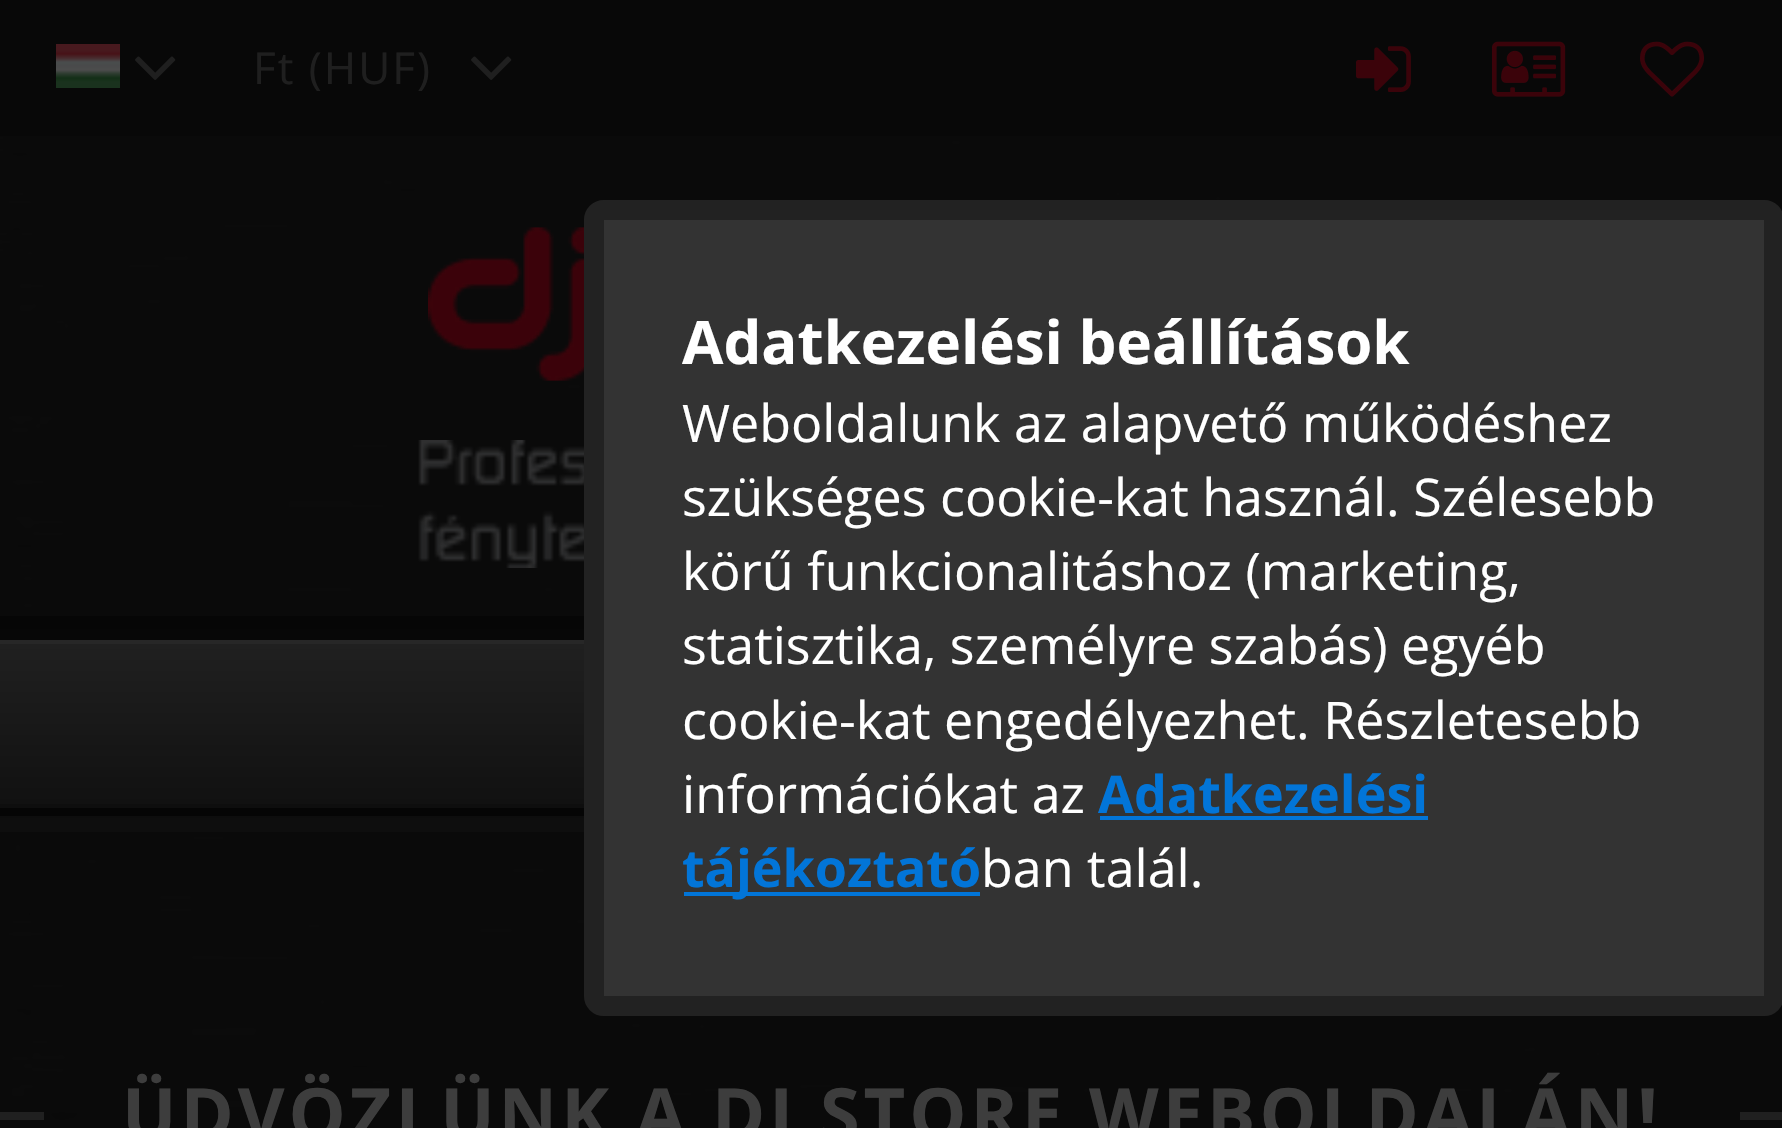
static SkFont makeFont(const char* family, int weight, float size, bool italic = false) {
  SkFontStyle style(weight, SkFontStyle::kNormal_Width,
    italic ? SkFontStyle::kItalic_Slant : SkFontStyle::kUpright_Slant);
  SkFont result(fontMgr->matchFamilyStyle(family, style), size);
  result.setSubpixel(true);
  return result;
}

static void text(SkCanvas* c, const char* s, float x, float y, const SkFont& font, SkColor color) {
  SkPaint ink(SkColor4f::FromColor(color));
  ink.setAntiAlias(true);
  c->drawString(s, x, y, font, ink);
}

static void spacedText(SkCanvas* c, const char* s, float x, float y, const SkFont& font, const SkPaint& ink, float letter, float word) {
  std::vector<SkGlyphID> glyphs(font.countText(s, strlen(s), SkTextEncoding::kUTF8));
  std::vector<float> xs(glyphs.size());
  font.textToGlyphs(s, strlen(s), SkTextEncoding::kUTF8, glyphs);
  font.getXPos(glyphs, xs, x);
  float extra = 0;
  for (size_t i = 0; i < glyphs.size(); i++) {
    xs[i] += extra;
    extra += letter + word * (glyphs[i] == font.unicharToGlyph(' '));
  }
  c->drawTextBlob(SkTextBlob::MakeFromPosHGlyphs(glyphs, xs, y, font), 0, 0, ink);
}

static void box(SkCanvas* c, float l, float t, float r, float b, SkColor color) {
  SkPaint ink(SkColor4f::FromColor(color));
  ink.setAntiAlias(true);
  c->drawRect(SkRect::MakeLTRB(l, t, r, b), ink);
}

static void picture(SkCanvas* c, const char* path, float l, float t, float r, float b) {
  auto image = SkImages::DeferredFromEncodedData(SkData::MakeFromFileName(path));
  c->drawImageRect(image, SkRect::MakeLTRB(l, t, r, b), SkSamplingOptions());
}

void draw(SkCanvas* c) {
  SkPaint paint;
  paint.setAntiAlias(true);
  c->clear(0xffffffff);
  picture(c, "img_01.png", 0, 136, 1782, 1128);
  box(c, 0, 0, 1782, 136, 0xff080808);
  picture(c, "img_02.png", 56, 44, 120, 88);
  picture(c, "img_03.png", 135, 56, 176, 80);
  SkFont face1 = makeFont("Open Sans", 400, 44);
  paint.setColor(0xff1f1f1f);
  spacedText(c, "Ft (HUF)", 253, 84, face1, paint, 2, 0);
  picture(c, "img_03.png", 471, 56, 512, 80);
  picture(c, "img_04.png", 1356, 46, 1411, 92);
  picture(c, "img_05.png", 1492, 41, 1566, 97);
  picture(c, "img_06.png", 1640, 41, 1704, 97);
  picture(c, "img_07.png", 428, 227, 584, 381);
  picture(c, "img_08.png", 418, 440, 584, 568);
  {
    const SkColor colors[] = {0xff060606, 0xff0e0e0e};
    const float stops[] = {0, 1};
    const SkPoint ends[] = {{892, 616}, {892, 832}};
    paint.setShader(SkGradientShader::MakeLinear(ends, colors, stops, 2, SkTileMode::kClamp));
    paint.setAlpha(255);
  }
  c->drawRect(SkRect::MakeLTRB(0, 616, 584, 832), paint);
  box(c, 0, 656, 584, 816, 0xff050505);
  {
    const SkColor colors[] = {0xff202020, 0xff111111};
    const float stops[] = {0, 1};
    const SkPoint ends[] = {{892, 644}, {892, 804}};
    paint.setShader(SkGradientShader::MakeLinear(ends, colors, stops, 2, SkTileMode::kClamp));
    paint.setAlpha(255);
  }
  c->drawRect(SkRect::MakeLTRB(0, 644, 584, 804), paint);
  box(c, 0, 640, 584, 644, 0xff272727);
  box(c, 0, 804, 584, 808, 0xff0e0e0e);
  box(c, 0, 1112, 1782, 1120, 0xff202020);
  picture(c, "img_09.png", 44, 1112, 1740, 1120);
  SkFont face2 = makeFont("Open Sans", 700, 72);
  paint.setShader(nullptr);
  paint.setColor(0xff3d3d3d);
  spacedText(c, "ÜDVÖZLÜNK A DJ STORE WEBOLDALÁN!", 122, 1140, face2, paint, 4, 0);
  paint.setColor(0xff333333);
  c->drawRoundRect(SkRect::MakeLTRB(594, 210, 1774, 1006), 10, 10, paint);
  paint.setStyle(SkPaint::kStroke_Style);
  paint.setStrokeWidth(20);
  paint.setColor(0xff222222);
  c->drawRoundRect(SkRect::MakeLTRB(594, 210, 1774, 1006), 10, 10, paint);
  SkFont face3 = makeFont("Open Sans", 700, 60);
  text(c, "Adatkezelési beállítások", 682, 364, face3, 0xffffffff);
  SkFont face4 = makeFont("Open Sans", 400, 52);
  text(c, "Weboldalunk az alapvető működéshez", 682, 442, face4, 0xffffffff);
  text(c, "szükséges cookie-kat használ. Szélesebb", 682, 516, face4, 0xffffffff);
  text(c, "körű funkcionalitáshoz (marketing,", 682, 590, face4, 0xffffffff);
  text(c, "statisztika, személyre szabás) egyéb", 682, 664, face4, 0xffffffff);
  text(c, "cookie-kat engedélyezhet. Részletesebb", 682, 739, face4, 0xffffffff);
  text(c, "információkat az", 682, 813, face4, 0xffffffff);
  SkFont face5 = makeFont("Open Sans", 700, 52);
  text(c, "Adatkezelési", 1098, 813, face5, 0xff0275d8);
  box(c, 1100, 816, 1428, 820, 0xff0275d8);
  box(c, 684, 892, 980, 896, 0xff0275d8);
  text(c, "tájékoztató", 682, 887, face5, 0xff0275d8);
  text(c, "ban talál.", 981, 887, face4, 0xffffffff);
}
